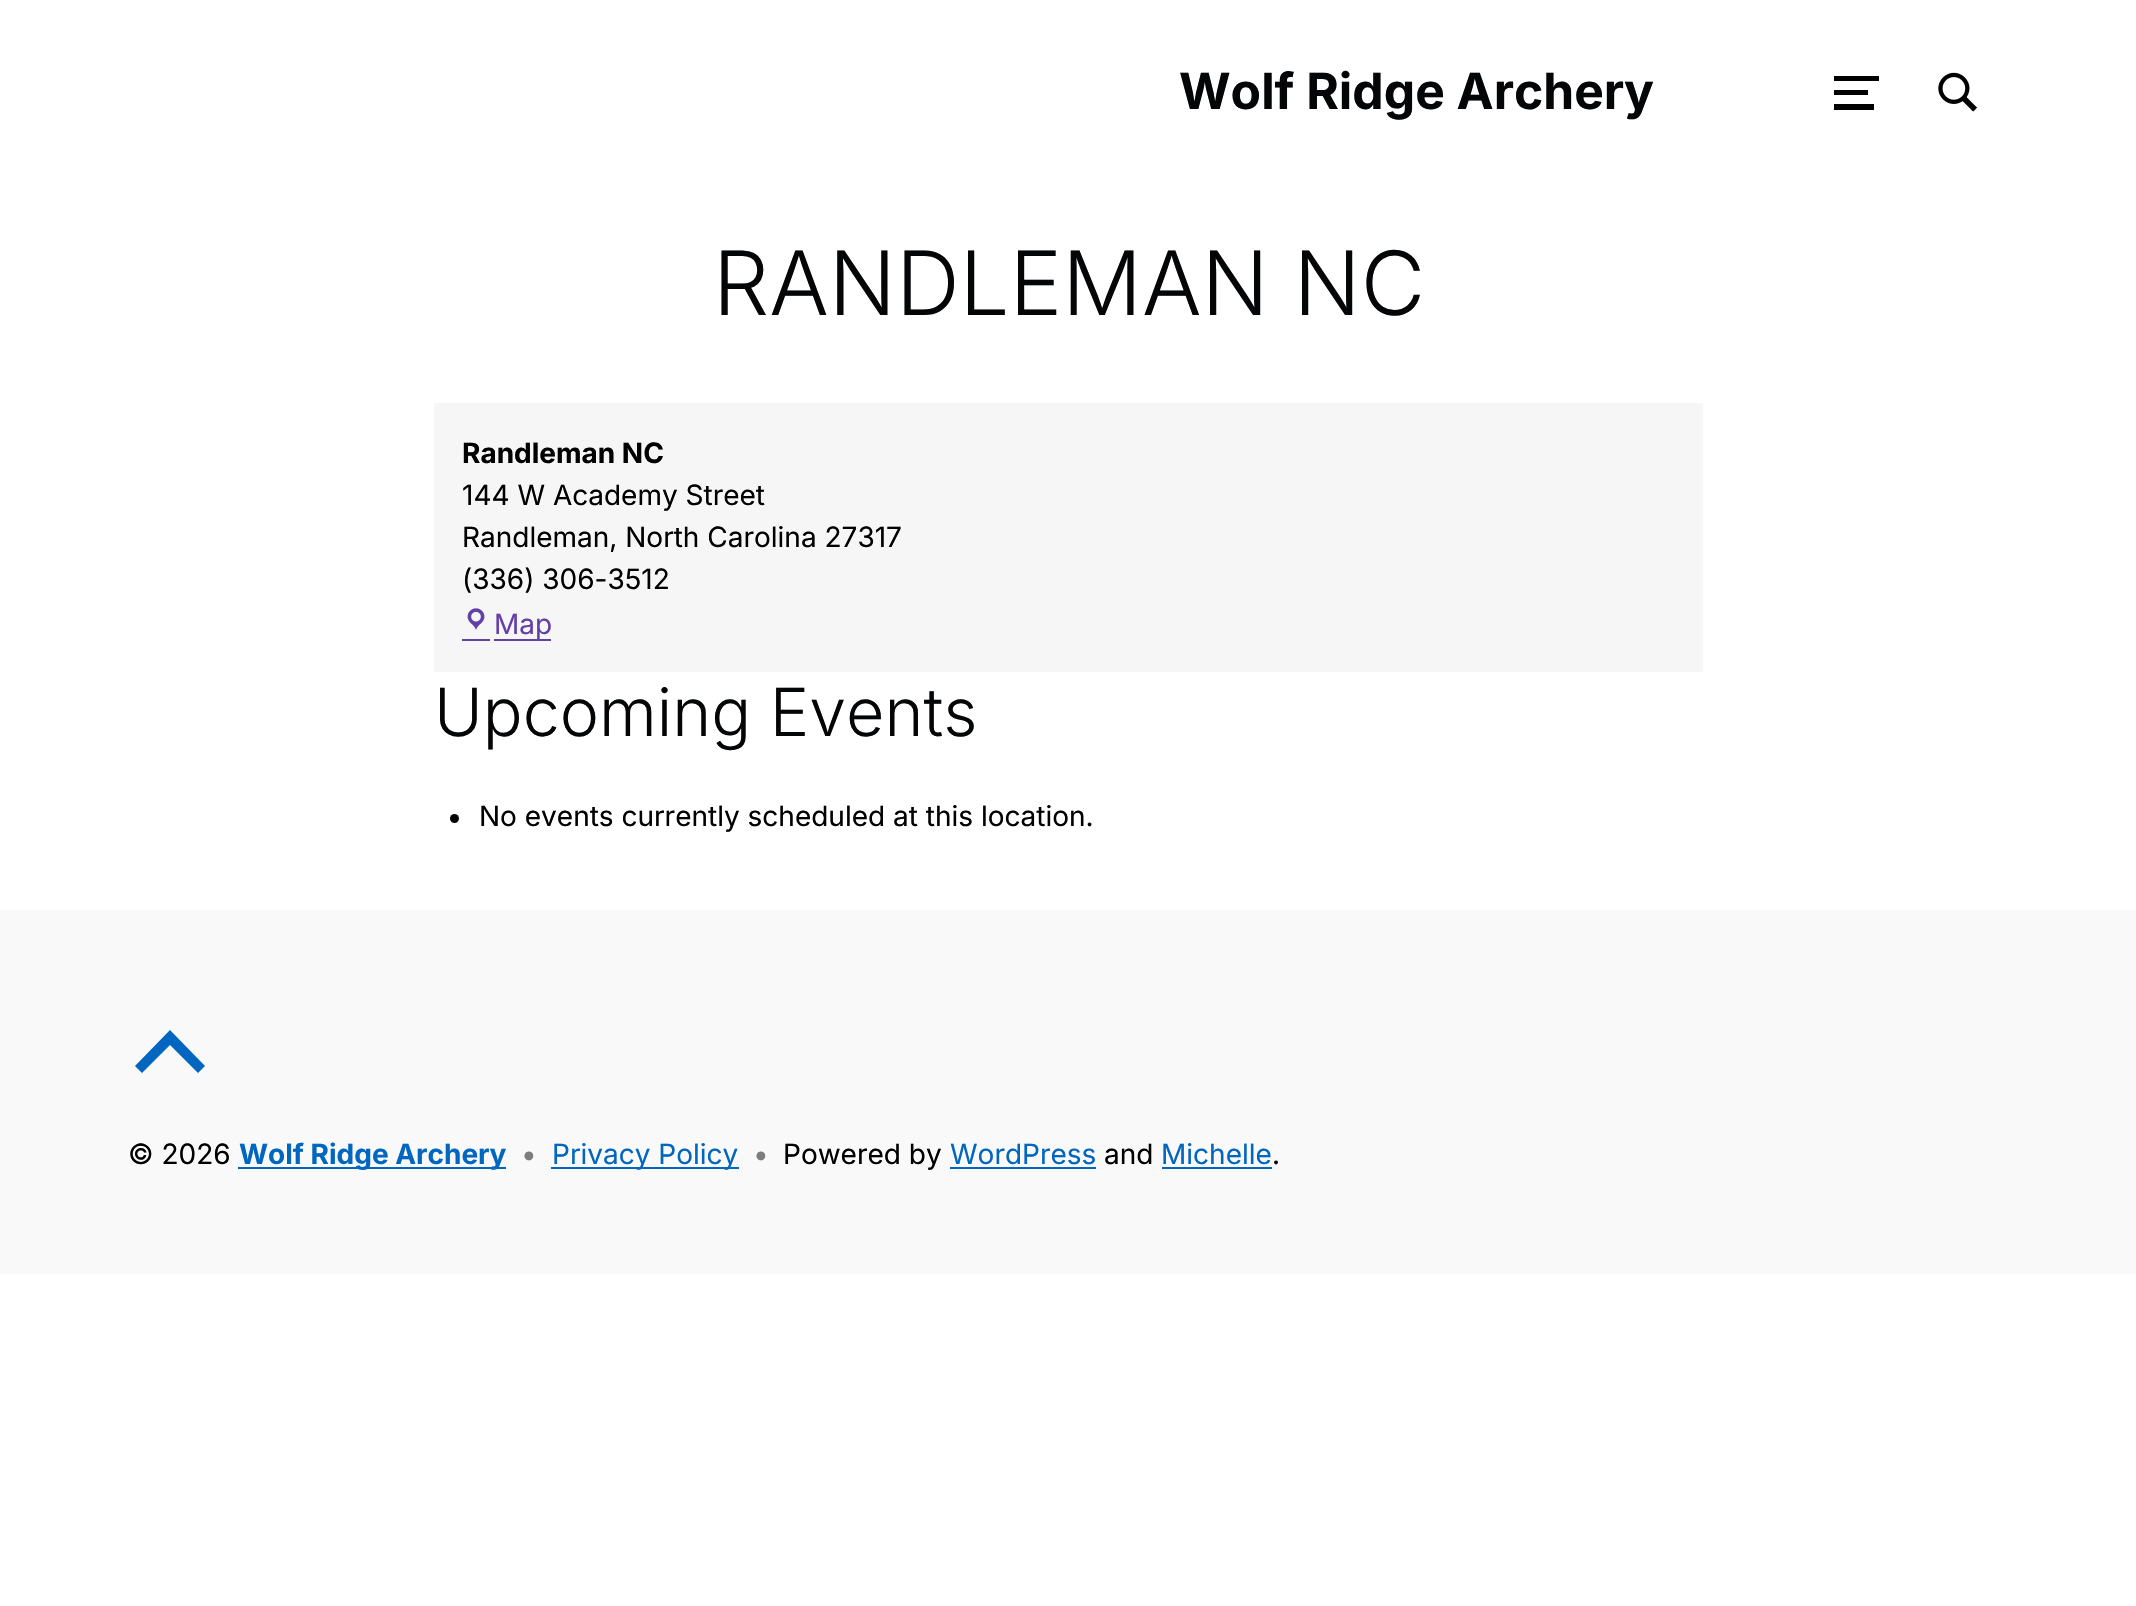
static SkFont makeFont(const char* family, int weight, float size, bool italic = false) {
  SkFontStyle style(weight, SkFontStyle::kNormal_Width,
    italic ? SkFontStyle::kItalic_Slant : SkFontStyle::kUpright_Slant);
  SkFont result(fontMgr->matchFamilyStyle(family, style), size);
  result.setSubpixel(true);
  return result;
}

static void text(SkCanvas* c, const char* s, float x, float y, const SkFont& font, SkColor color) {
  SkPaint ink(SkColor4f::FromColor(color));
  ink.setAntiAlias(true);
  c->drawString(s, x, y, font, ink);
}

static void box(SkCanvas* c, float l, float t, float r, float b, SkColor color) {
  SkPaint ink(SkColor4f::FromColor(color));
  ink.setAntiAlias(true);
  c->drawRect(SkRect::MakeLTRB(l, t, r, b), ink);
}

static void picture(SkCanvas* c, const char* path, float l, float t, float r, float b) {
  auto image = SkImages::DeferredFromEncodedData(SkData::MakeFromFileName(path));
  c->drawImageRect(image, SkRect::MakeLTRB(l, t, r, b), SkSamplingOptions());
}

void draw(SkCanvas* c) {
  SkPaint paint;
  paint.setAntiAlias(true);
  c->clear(0xffffffff);
  SkFont face1 = makeFont("Inter", 700, 49.75f);
  text(c, "Wolf Ridge Archery", 1179, 109, face1, 0xff030507);
  paint.setColor(0xff000000);
  c->drawPath(SkPathBuilder().moveTo(1834, 76).lineTo(1834, 81).lineTo(1879, 81).lineTo(1879, 76).close().moveTo(1834, 95).lineTo(1868, 95).lineTo(1868, 90).lineTo(1834, 90).close().moveTo(1834, 110).lineTo(1874, 110).lineTo(1874, 104).lineTo(1834, 104).close().detach(), paint);
  picture(c, "img_01.png", 1938, 72, 1977, 112);
  SkFont face2 = makeFont("Inter", 300, 88.5f);
  text(c, "RANDLEMAN NC", 713, 315, face2, 0xff030507);
  box(c, 434, 403, 1703, 672, 0xfff6f6f6);
  SkFont face3 = makeFont("Inter", 700, 28);
  text(c, "Randleman NC", 462, 463, face3, 0xff000000);
  SkFont face4 = makeFont("Inter", 400, 28);
  text(c, "144 W Academy Street", 462, 505, face4, 0xff000000);
  text(c, "Randleman, North Carolina 27317", 462, 547, face4, 0xff000000);
  text(c, "(336) 306-3512", 462, 589, face4, 0xff000000);
  picture(c, "img_02.png", 467, 608, 485, 630);
  box(c, 494, 639, 551, 641, 0xff6340a7);
  text(c, "Map", 494, 634, face4, 0xff6340a7);
  box(c, 462, 639, 490, 641, 0xff6340a7);
  SkFont face5 = makeFont("Inter", 300, 66.25f);
  text(c, "Upcoming Events", 434, 736, face5, 0xff030507);
  c->drawCircle(454.5f, 818.5f, 4.5f, paint);
  text(c, "No events currently scheduled at this location.", 479, 826, face4, 0xff000000);
  box(c, 0, 910, 2136, 1274, 0xfff9f9f9);
  paint.setColor(0xff0066bf);
  c->drawPath(SkPathBuilder().moveTo(170, 1030).lineTo(135, 1066).lineTo(142, 1073).lineTo(170, 1045).lineTo(198, 1073).lineTo(205, 1066).close().detach(), paint);
  text(c, "© 2026", 128, 1164, face4, 0xff000000);
  box(c, 238, 1167, 506, 1169, 0xff0066bf);
  text(c, "Wolf Ridge Archery", 239, 1164, face3, 0xff0066bf);
  text(c, "•", 521, 1164, face4, 0xff7d7d7d);
  box(c, 551, 1167, 739, 1169, 0xff0066bf);
  text(c, "Privacy Policy", 552, 1164, face4, 0xff0066bf);
  text(c, "•", 753, 1164, face4, 0xff7d7d7d);
  text(c, "Powered by", 783, 1164, face4, 0xff000000);
  text(c, "WordPress", 950, 1164, face4, 0xff0066bf);
  box(c, 950, 1167, 1096, 1169, 0xff0066bf);
  text(c, "and", 1104, 1164, face4, 0xff000000);
  text(c, "Michelle", 1161, 1164, face4, 0xff0066bf);
  box(c, 1162, 1167, 1272, 1169, 0xff0066bf);
  text(c, ".", 1272, 1164, face4, 0xff000000);
}
